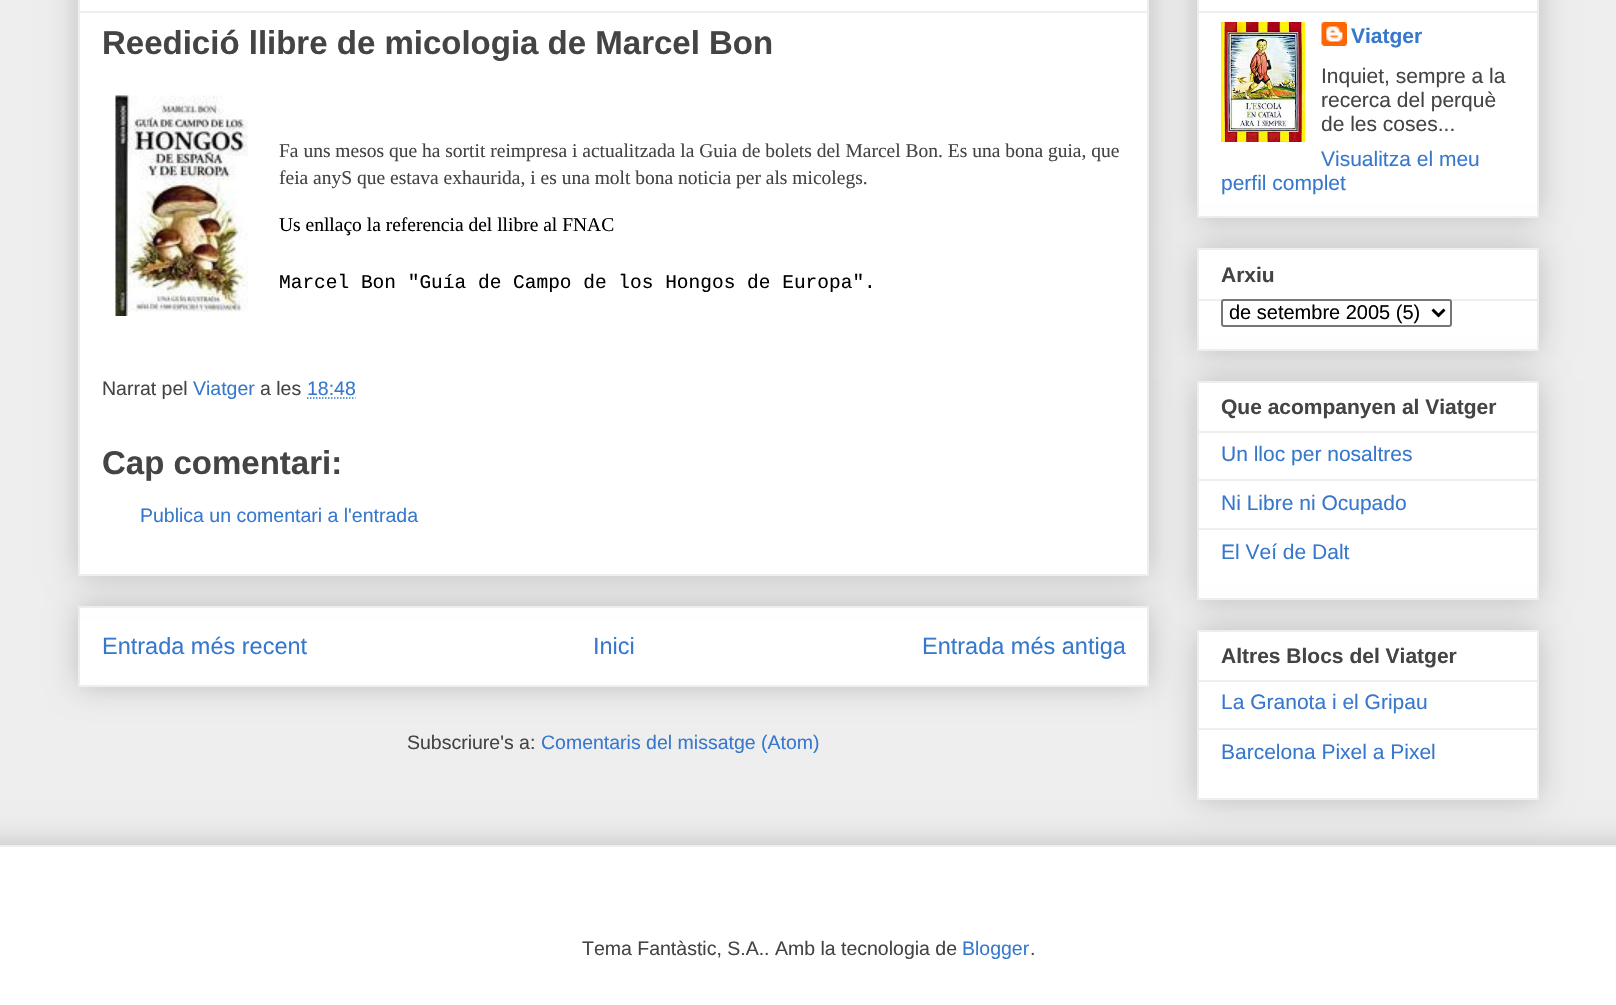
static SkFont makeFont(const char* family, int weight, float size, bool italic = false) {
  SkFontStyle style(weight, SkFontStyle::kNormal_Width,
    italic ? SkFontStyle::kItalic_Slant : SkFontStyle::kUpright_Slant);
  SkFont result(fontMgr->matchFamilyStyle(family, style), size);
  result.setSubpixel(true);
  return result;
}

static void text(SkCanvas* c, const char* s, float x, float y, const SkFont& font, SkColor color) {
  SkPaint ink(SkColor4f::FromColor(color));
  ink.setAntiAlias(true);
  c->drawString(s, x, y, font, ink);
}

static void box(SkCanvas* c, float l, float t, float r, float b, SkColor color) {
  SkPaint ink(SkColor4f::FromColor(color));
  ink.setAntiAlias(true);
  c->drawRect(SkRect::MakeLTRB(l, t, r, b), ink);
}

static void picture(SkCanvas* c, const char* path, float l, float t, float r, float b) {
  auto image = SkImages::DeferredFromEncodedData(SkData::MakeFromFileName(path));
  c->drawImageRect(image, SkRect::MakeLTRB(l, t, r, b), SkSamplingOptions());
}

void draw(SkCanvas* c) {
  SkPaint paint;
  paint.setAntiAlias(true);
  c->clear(0xffeeeeee);
  paint.setColor(0x33000000);
  paint.setMaskFilter(SkMaskFilter::MakeBlur(kNormal_SkBlurStyle, 15));
  c->drawRect(SkRect::MakeLTRB(78, 606, 1149, 687), paint);
  paint.setMaskFilter(nullptr);
  paint.setColor(0xffffffff);
  c->drawRect(SkRect::MakeLTRB(79, 607, 1148, 686), paint);
  paint.setStyle(SkPaint::kStroke_Style);
  paint.setStrokeWidth(2);
  paint.setColor(0xffeeeeee);
  c->drawRect(SkRect::MakeLTRB(79, 607, 1148, 686), paint);
  paint.setStyle(SkPaint::kFill_Style);
  paint.setColor(0x33000000);
  paint.setMaskFilter(SkMaskFilter::MakeBlur(kNormal_SkBlurStyle, 15));
  c->drawRect(SkRect::MakeLTRB(78, -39, 1149, 576), paint);
  paint.setMaskFilter(nullptr);
  paint.setColor(0xffffffff);
  c->drawRect(SkRect::MakeLTRB(79, -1, 1148, 575), paint);
  paint.setStyle(SkPaint::kStroke_Style);
  paint.setColor(0xffeeeeee);
  c->drawRect(SkRect::MakeLTRB(79, -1, 1148, 575), paint);
  box(c, 80, 11, 1148, 13, 0xffeeeeee);
  SkFont face1 = makeFont("Liberation Sans", 700, 33);
  text(c, "Reedició llibre de micologia de Marcel Bon", 102, 54, face1, 0xff444444);
  picture(c, "img_01.png", 115, 95, 248, 316);
  SkFont face2 = makeFont("Liberation Serif", 400, 19.5f);
  text(c, "Fa uns mesos que ha sortit reimpresa i actualitzada la Guia de bolets del Marcel Bon. Es una bona guia, que", 279, 157, face2, 0xff444444);
  text(c, "feia anyS que estava exhaurida, i es una molt bona noticia per als micolegs.", 279, 184, face2, 0xff444444);
  text(c, "Us enllaço la referencia del llibre al FNAC", 279, 231, face2, 0xff000000);
  SkFont face3 = makeFont("Liberation Mono", 400, 19.5f);
  text(c, "Marcel Bon \"Guía de Campo de los Hongos de Europa\".", 279, 288, face3, 0xff000000);
  SkFont face4 = makeFont("Liberation Sans", 400, 19.5f);
  text(c, "Narrat pel", 102, 395, face4, 0xff444444);
  text(c, "Viatger", 193, 395, face4, 0xff3778cd);
  text(c, "a les", 260, 395, face4, 0xff444444);
  text(c, "18:48", 307, 395, face4, 0xff3778cd);
  paint.setStrokeWidth(1.5f);
  paint.setColor(0xff3778cd);
  paint.setPathEffect(SkDashPathEffect::Make({{1.5f, 1.5f}}, 0));
  c->drawPath(SkPathBuilder().moveTo(307, 398).lineTo(355.5f, 398).detach(), paint);
  paint.setPathEffect(nullptr);
  text(c, "Cap comentari:", 102, 474, face1, 0xff444444);
  text(c, "Publica un comentari a l'entrada", 140, 522, face4, 0xff3778cd);
  SkFont face5 = makeFont("Liberation Sans", 400, 23.5f);
  text(c, "Entrada més recent", 102, 654, face5, 0xff3778cd);
  text(c, "Inici", 593, 654, face5, 0xff3778cd);
  text(c, "Entrada més antiga", 922, 654, face5, 0xff3778cd);
  text(c, "Subscriure's a:", 407, 749, face4, 0xff444444);
  text(c, "Comentaris del missatge (Atom)", 541, 749, face4, 0xff3778cd);
  paint.setStyle(SkPaint::kFill_Style);
  paint.setColor(0x33000000);
  paint.setMaskFilter(SkMaskFilter::MakeBlur(kNormal_SkBlurStyle, 15));
  c->drawRect(SkRect::MakeLTRB(1197, -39, 1539, 218), paint);
  paint.setMaskFilter(nullptr);
  paint.setColor(0xffffffff);
  c->drawRect(SkRect::MakeLTRB(1198, -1, 1538, 217), paint);
  paint.setStyle(SkPaint::kStroke_Style);
  paint.setStrokeWidth(2);
  paint.setColor(0xffeeeeee);
  c->drawRect(SkRect::MakeLTRB(1198, -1, 1538, 217), paint);
  box(c, 1199, 11, 1538, 13, 0xffeeeeee);
  picture(c, "img_02.png", 1221, 22, 1305, 142);
  picture(c, "img_03.png", 1321, 22, 1347, 46);
  SkFont face6 = makeFont("Liberation Sans", 700, 21);
  text(c, "Viatger", 1351, 43, face6, 0xff3778cd);
  SkFont face7 = makeFont("Liberation Sans", 400, 21);
  text(c, "Inquiet, sempre a la", 1321, 83, face7, 0xff444444);
  text(c, "recerca del perquè", 1321, 107, face7, 0xff444444);
  text(c, "de les coses...", 1321, 131, face7, 0xff444444);
  text(c, "Visualitza el meu", 1321, 166, face7, 0xff3778cd);
  text(c, "perfil complet", 1221, 190, face7, 0xff3778cd);
  paint.setStyle(SkPaint::kFill_Style);
  paint.setColor(0x33000000);
  paint.setMaskFilter(SkMaskFilter::MakeBlur(kNormal_SkBlurStyle, 15));
  c->drawRect(SkRect::MakeLTRB(1197, 248, 1539, 351), paint);
  paint.setMaskFilter(nullptr);
  paint.setColor(0xffffffff);
  c->drawRect(SkRect::MakeLTRB(1198, 249, 1538, 350), paint);
  paint.setStyle(SkPaint::kStroke_Style);
  paint.setColor(0xffeeeeee);
  c->drawRect(SkRect::MakeLTRB(1198, 249, 1538, 350), paint);
  text(c, "Arxiu", 1221, 282, face6, 0xff444444);
  box(c, 1199, 299, 1538, 301, 0xffeeeeee);
  paint.setStyle(SkPaint::kFill_Style);
  paint.setColor(0xffffffff);
  c->drawRoundRect(SkRect::MakeLTRB(1222, 300, 1451, 326), 2, 2, paint);
  paint.setStyle(SkPaint::kStroke_Style);
  paint.setColor(0xff767676);
  c->drawRoundRect(SkRect::MakeLTRB(1222, 300, 1451, 326), 2, 2, paint);
  paint.setStrokeWidth(3);
  paint.setColor(0xff000000);
  c->drawPath(SkPathBuilder().moveTo(1432.5f, 309.5f).lineTo(1438.5f, 315.5f).lineTo(1444.5f, 309.5f).detach(), paint);
  SkFont face8 = makeFont("Liberation Sans", 400, 20);
  text(c, "de setembre 2005 (5)", 1229, 319, face8, 0xff000000);
  paint.setStyle(SkPaint::kFill_Style);
  paint.setColor(0x33000000);
  paint.setMaskFilter(SkMaskFilter::MakeBlur(kNormal_SkBlurStyle, 15));
  c->drawRect(SkRect::MakeLTRB(1197, 381, 1539, 600), paint);
  paint.setMaskFilter(nullptr);
  paint.setColor(0xffffffff);
  c->drawRect(SkRect::MakeLTRB(1198, 382, 1538, 599), paint);
  paint.setStyle(SkPaint::kStroke_Style);
  paint.setStrokeWidth(2);
  paint.setColor(0xffeeeeee);
  c->drawRect(SkRect::MakeLTRB(1198, 382, 1538, 599), paint);
  text(c, "Que acompanyen al Viatger", 1221, 414, face6, 0xff444444);
  box(c, 1199, 431, 1538, 433, 0xffeeeeee);
  text(c, "Un lloc per nosaltres", 1221, 461, face7, 0xff3778cd);
  box(c, 1199, 479, 1538, 481, 0xffeeeeee);
  text(c, "Ni Libre ni Ocupado", 1221, 510, face7, 0xff3778cd);
  box(c, 1199, 528, 1538, 530, 0xffeeeeee);
  text(c, "El Veí de Dalt", 1221, 559, face7, 0xff3778cd);
  paint.setStyle(SkPaint::kFill_Style);
  paint.setColor(0x33000000);
  paint.setMaskFilter(SkMaskFilter::MakeBlur(kNormal_SkBlurStyle, 15));
  c->drawRect(SkRect::MakeLTRB(1197, 630, 1539, 800), paint);
  paint.setMaskFilter(nullptr);
  paint.setColor(0xffffffff);
  c->drawRect(SkRect::MakeLTRB(1198, 631, 1538, 799), paint);
  paint.setStyle(SkPaint::kStroke_Style);
  paint.setColor(0xffeeeeee);
  c->drawRect(SkRect::MakeLTRB(1198, 631, 1538, 799), paint);
  text(c, "Altres Blocs del Viatger", 1221, 663, face6, 0xff444444);
  box(c, 1199, 680, 1538, 682, 0xffeeeeee);
  text(c, "La Granota i el Gripau", 1221, 709, face7, 0xff3778cd);
  box(c, 1199, 728, 1538, 730, 0xffeeeeee);
  text(c, "Barcelona Pixel a Pixel", 1221, 759, face7, 0xff3778cd);
  paint.setStyle(SkPaint::kFill_Style);
  paint.setColor(0x33000000);
  paint.setMaskFilter(SkMaskFilter::MakeBlur(kNormal_SkBlurStyle, 15));
  c->drawRect(SkRect::MakeLTRB(-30, 845, 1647, 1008), paint);
  paint.setMaskFilter(nullptr);
  box(c, 0, 847, 1616, 1005, 0xffffffff);
  box(c, 0, 845, 1616, 847, 0xffeeeeee);
  text(c, "Tema Fantàstic, S.A.. Amb la tecnologia de", 582, 955, face4, 0xff444444);
  text(c, "Blogger", 962, 955, face4, 0xff3778cd);
  text(c, ".", 1030, 955, face4, 0xff444444);
}
